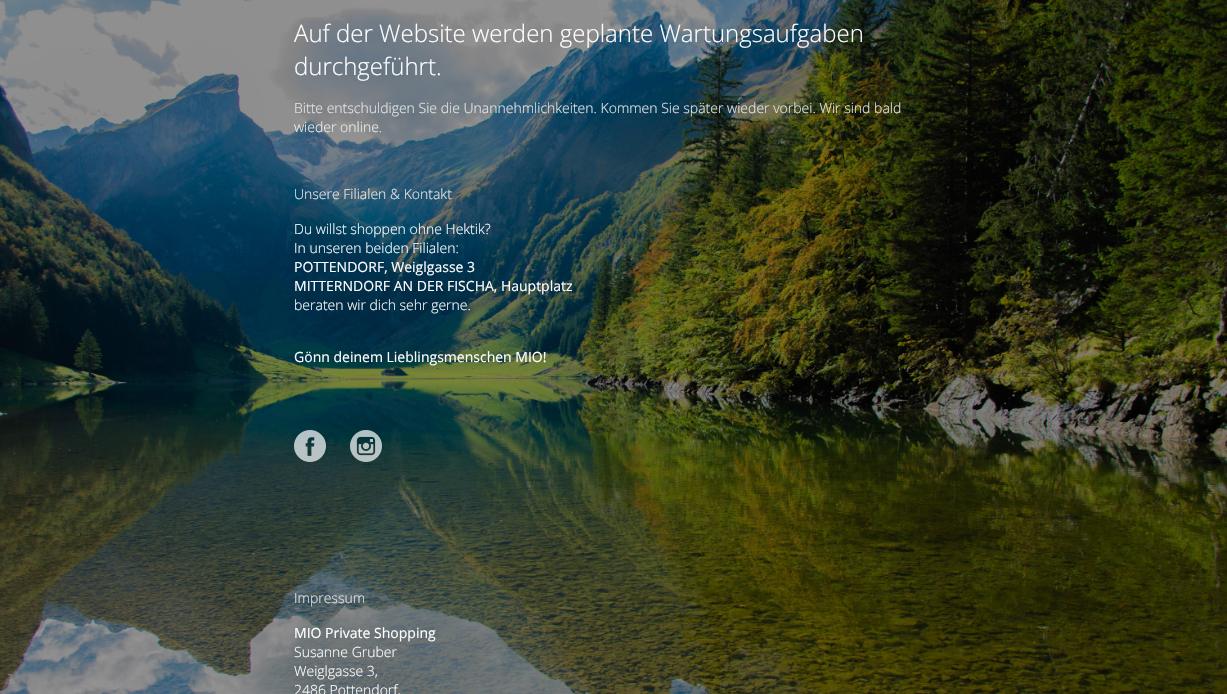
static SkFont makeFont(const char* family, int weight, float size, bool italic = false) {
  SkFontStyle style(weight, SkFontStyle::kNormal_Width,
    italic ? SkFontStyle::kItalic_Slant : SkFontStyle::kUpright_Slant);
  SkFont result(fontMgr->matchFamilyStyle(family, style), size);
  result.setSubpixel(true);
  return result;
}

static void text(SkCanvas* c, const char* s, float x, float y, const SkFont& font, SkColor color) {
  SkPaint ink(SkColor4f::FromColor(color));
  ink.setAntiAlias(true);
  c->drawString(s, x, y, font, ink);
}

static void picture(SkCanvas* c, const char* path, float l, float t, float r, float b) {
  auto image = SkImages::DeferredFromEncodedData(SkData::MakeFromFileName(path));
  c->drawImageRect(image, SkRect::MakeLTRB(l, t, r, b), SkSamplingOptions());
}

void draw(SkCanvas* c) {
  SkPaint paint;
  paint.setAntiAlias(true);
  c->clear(0xffffffff);
  picture(c, "img_01.png", 0, 0, 1227, 694);
  SkFont face1 = makeFont("Open Sans", 300, 24);
  text(c, "Auf der Website werden geplante Wartungsaufgaben", 294, 42, face1, 0xffffffff);
  text(c, "durchgeführt.", 294, 75, face1, 0xffffffff);
  SkFont face2 = makeFont("Open Sans", 300, 14);
  text(c, "Bitte entschuldigen Sie die Unannehmlichkeiten. Kommen Sie später wieder vorbei. Wir sind bald", 294, 113, face2, 0xffe3e6e6);
  text(c, "wieder online.", 294, 132, face2, 0xffebeced);
  text(c, "Unsere Filialen & Kontakt", 294, 199, face2, 0xffe3e6e6);
  text(c, "Du willst shoppen ohne Hektik?", 294, 234, face2, 0xffffffff);
  text(c, "In unseren beiden Filialen:", 294, 253, face2, 0xffffffff);
  SkFont face3 = makeFont("Open Sans", 400, 14);
  text(c, "POTTENDORF, Weiglgasse 3", 294, 272, face3, 0xffffffff);
  text(c, "MITTERNDORF AN DER FISCHA, Hauptplatz", 294, 291, face3, 0xffffffff);
  text(c, "beraten wir dich sehr gerne.", 294, 310, face2, 0xffffffff);
  text(c, "Gönn deinem Lieblingsmenschen MIO!", 294, 362, face3, 0xffffffff);
  picture(c, "img_02.png", 294, 430, 326, 462);
  picture(c, "img_03.png", 350, 430, 382, 462);
  text(c, "Impressum", 294, 603, face2, 0xffe3e6e6);
  text(c, "MIO Private Shopping", 294, 638, face3, 0xffffffff);
  text(c, "Susanne Gruber", 294, 657, face2, 0xffffffff);
  text(c, "Weiglgasse 3,", 294, 676, face2, 0xffffffff);
  text(c, "2486 Pottendorf,", 294, 695, face2, 0xffffffff);
}
